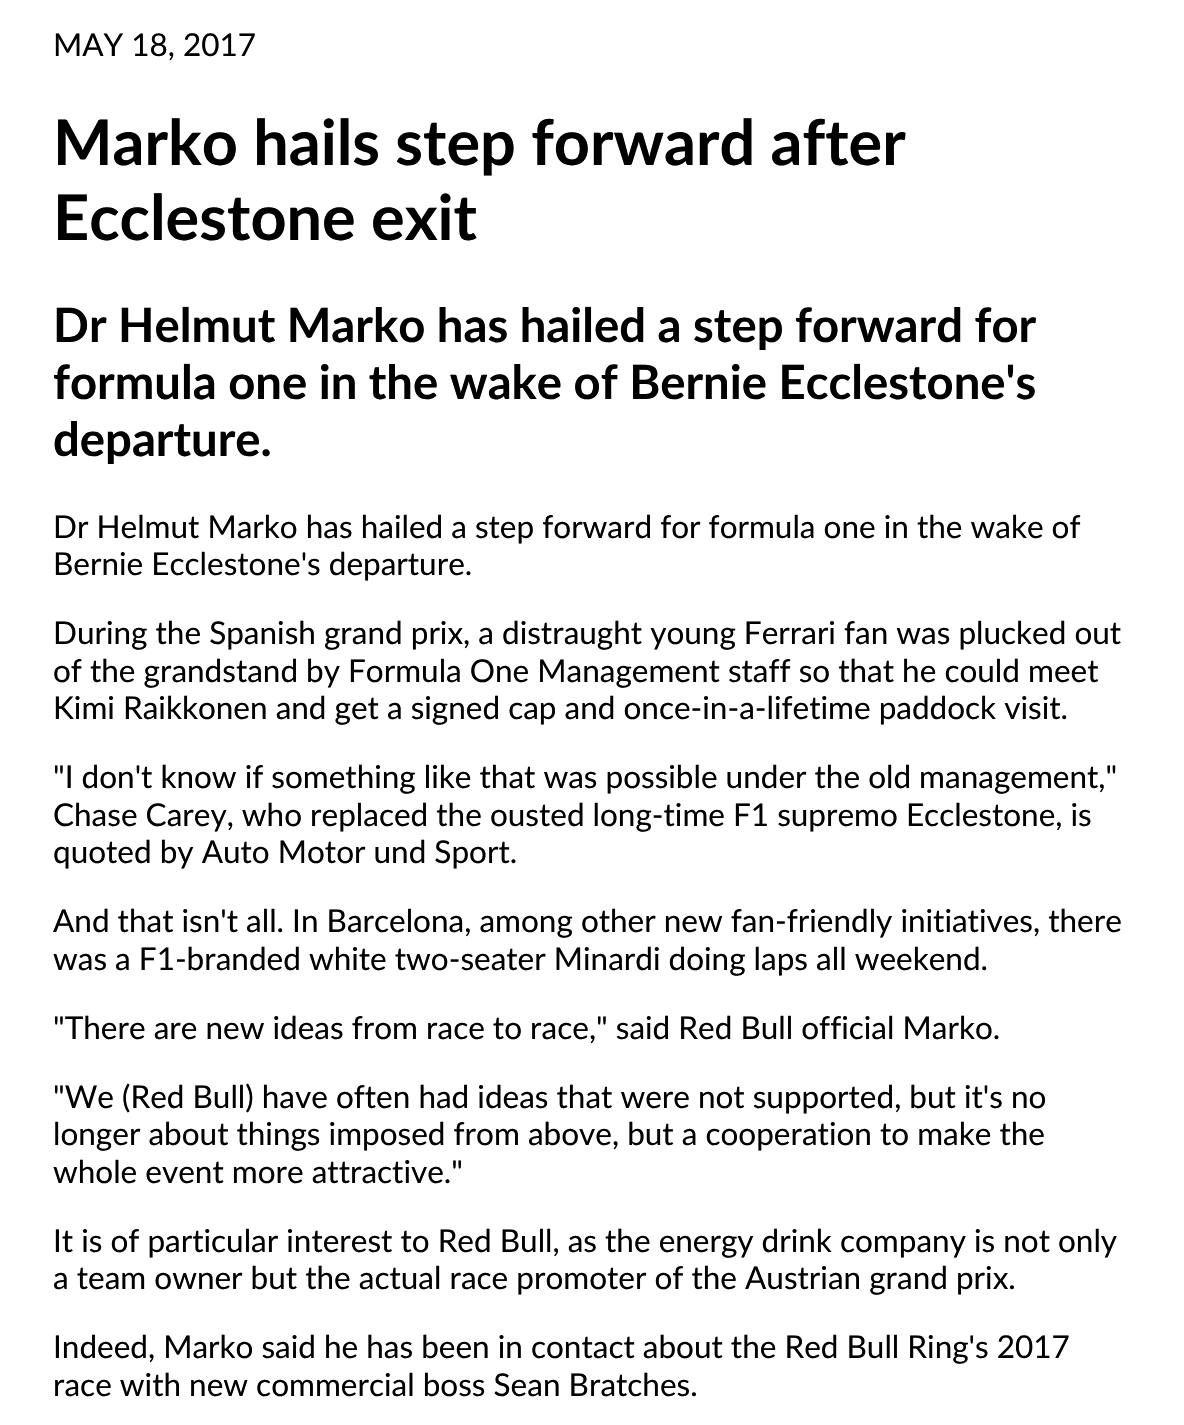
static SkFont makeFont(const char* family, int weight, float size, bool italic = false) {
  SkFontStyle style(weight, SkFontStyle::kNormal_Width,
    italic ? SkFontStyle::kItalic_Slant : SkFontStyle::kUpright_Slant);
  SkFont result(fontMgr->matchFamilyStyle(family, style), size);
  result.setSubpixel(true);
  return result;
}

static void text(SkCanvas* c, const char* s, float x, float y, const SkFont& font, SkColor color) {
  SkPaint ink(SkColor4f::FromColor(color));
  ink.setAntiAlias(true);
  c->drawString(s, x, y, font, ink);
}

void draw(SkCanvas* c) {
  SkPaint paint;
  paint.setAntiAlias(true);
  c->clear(0xffffffff);
  SkFont face1 = makeFont("Lato", 400, 31.5f);
  text(c, "MAY 18, 2017", 53, 56, face1, 0xff000000);
  SkFont face2 = makeFont("Lato", 700, 63);
  text(c, "Marko hails step forward after", 53, 165, face2, 0xff000000);
  text(c, "Ecclestone exit", 53, 240, face2, 0xff000000);
  SkFont face3 = makeFont("Lato", 700, 47.25f);
  text(c, "Dr Helmut Marko has hailed a step forward for", 53, 342, face3, 0xff000000);
  text(c, "formula one in the wake of Bernie Ecclestone's", 53, 399, face3, 0xff000000);
  text(c, "departure.", 53, 456, face3, 0xff000000);
  text(c, "Dr Helmut Marko has hailed a step forward for formula one in the wake of", 53, 538, face1, 0xff000000);
  text(c, "Bernie Ecclestone's departure.", 53, 575, face1, 0xff000000);
  text(c, "During the Spanish grand prix, a distraught young Ferrari fan was plucked out", 53, 644, face1, 0xff000000);
  text(c, "of the grandstand by Formula One Management staff so that he could meet", 53, 682, face1, 0xff000000);
  text(c, "Kimi Raikkonen and get a signed cap and once-in-a-lifetime paddock visit.", 53, 719, face1, 0xff000000);
  text(c, "\"I don't know if something like that was possible under the old management,\"", 53, 788, face1, 0xff000000);
  text(c, "Chase Carey, who replaced the ousted long-time F1 supremo Ecclestone, is", 53, 826, face1, 0xff000000);
  text(c, "quoted by Auto Motor und Sport.", 53, 863, face1, 0xff000000);
  text(c, "And that isn't all. In Barcelona, among other new fan-friendly initiatives, there", 53, 932, face1, 0xff000000);
  text(c, "was a F1-branded white two-seater Minardi doing laps all weekend.", 53, 970, face1, 0xff000000);
  text(c, "\"There are new ideas from race to race,\" said Red Bull official Marko.", 53, 1039, face1, 0xff000000);
  text(c, "\"We (Red Bull) have often had ideas that were not supported, but it's no", 53, 1108, face1, 0xff000000);
  text(c, "longer about things imposed from above, but a cooperation to make the", 53, 1145, face1, 0xff000000);
  text(c, "whole event more attractive.\"", 53, 1183, face1, 0xff000000);
  text(c, "It is of particular interest to Red Bull, as the energy drink company is not only", 53, 1252, face1, 0xff000000);
  text(c, "a team owner but the actual race promoter of the Austrian grand prix.", 53, 1289, face1, 0xff000000);
  text(c, "Indeed, Marko said he has been in contact about the Red Bull Ring's 2017", 53, 1358, face1, 0xff000000);
  text(c, "race with new commercial boss Sean Bratches.", 53, 1396, face1, 0xff000000);
}
